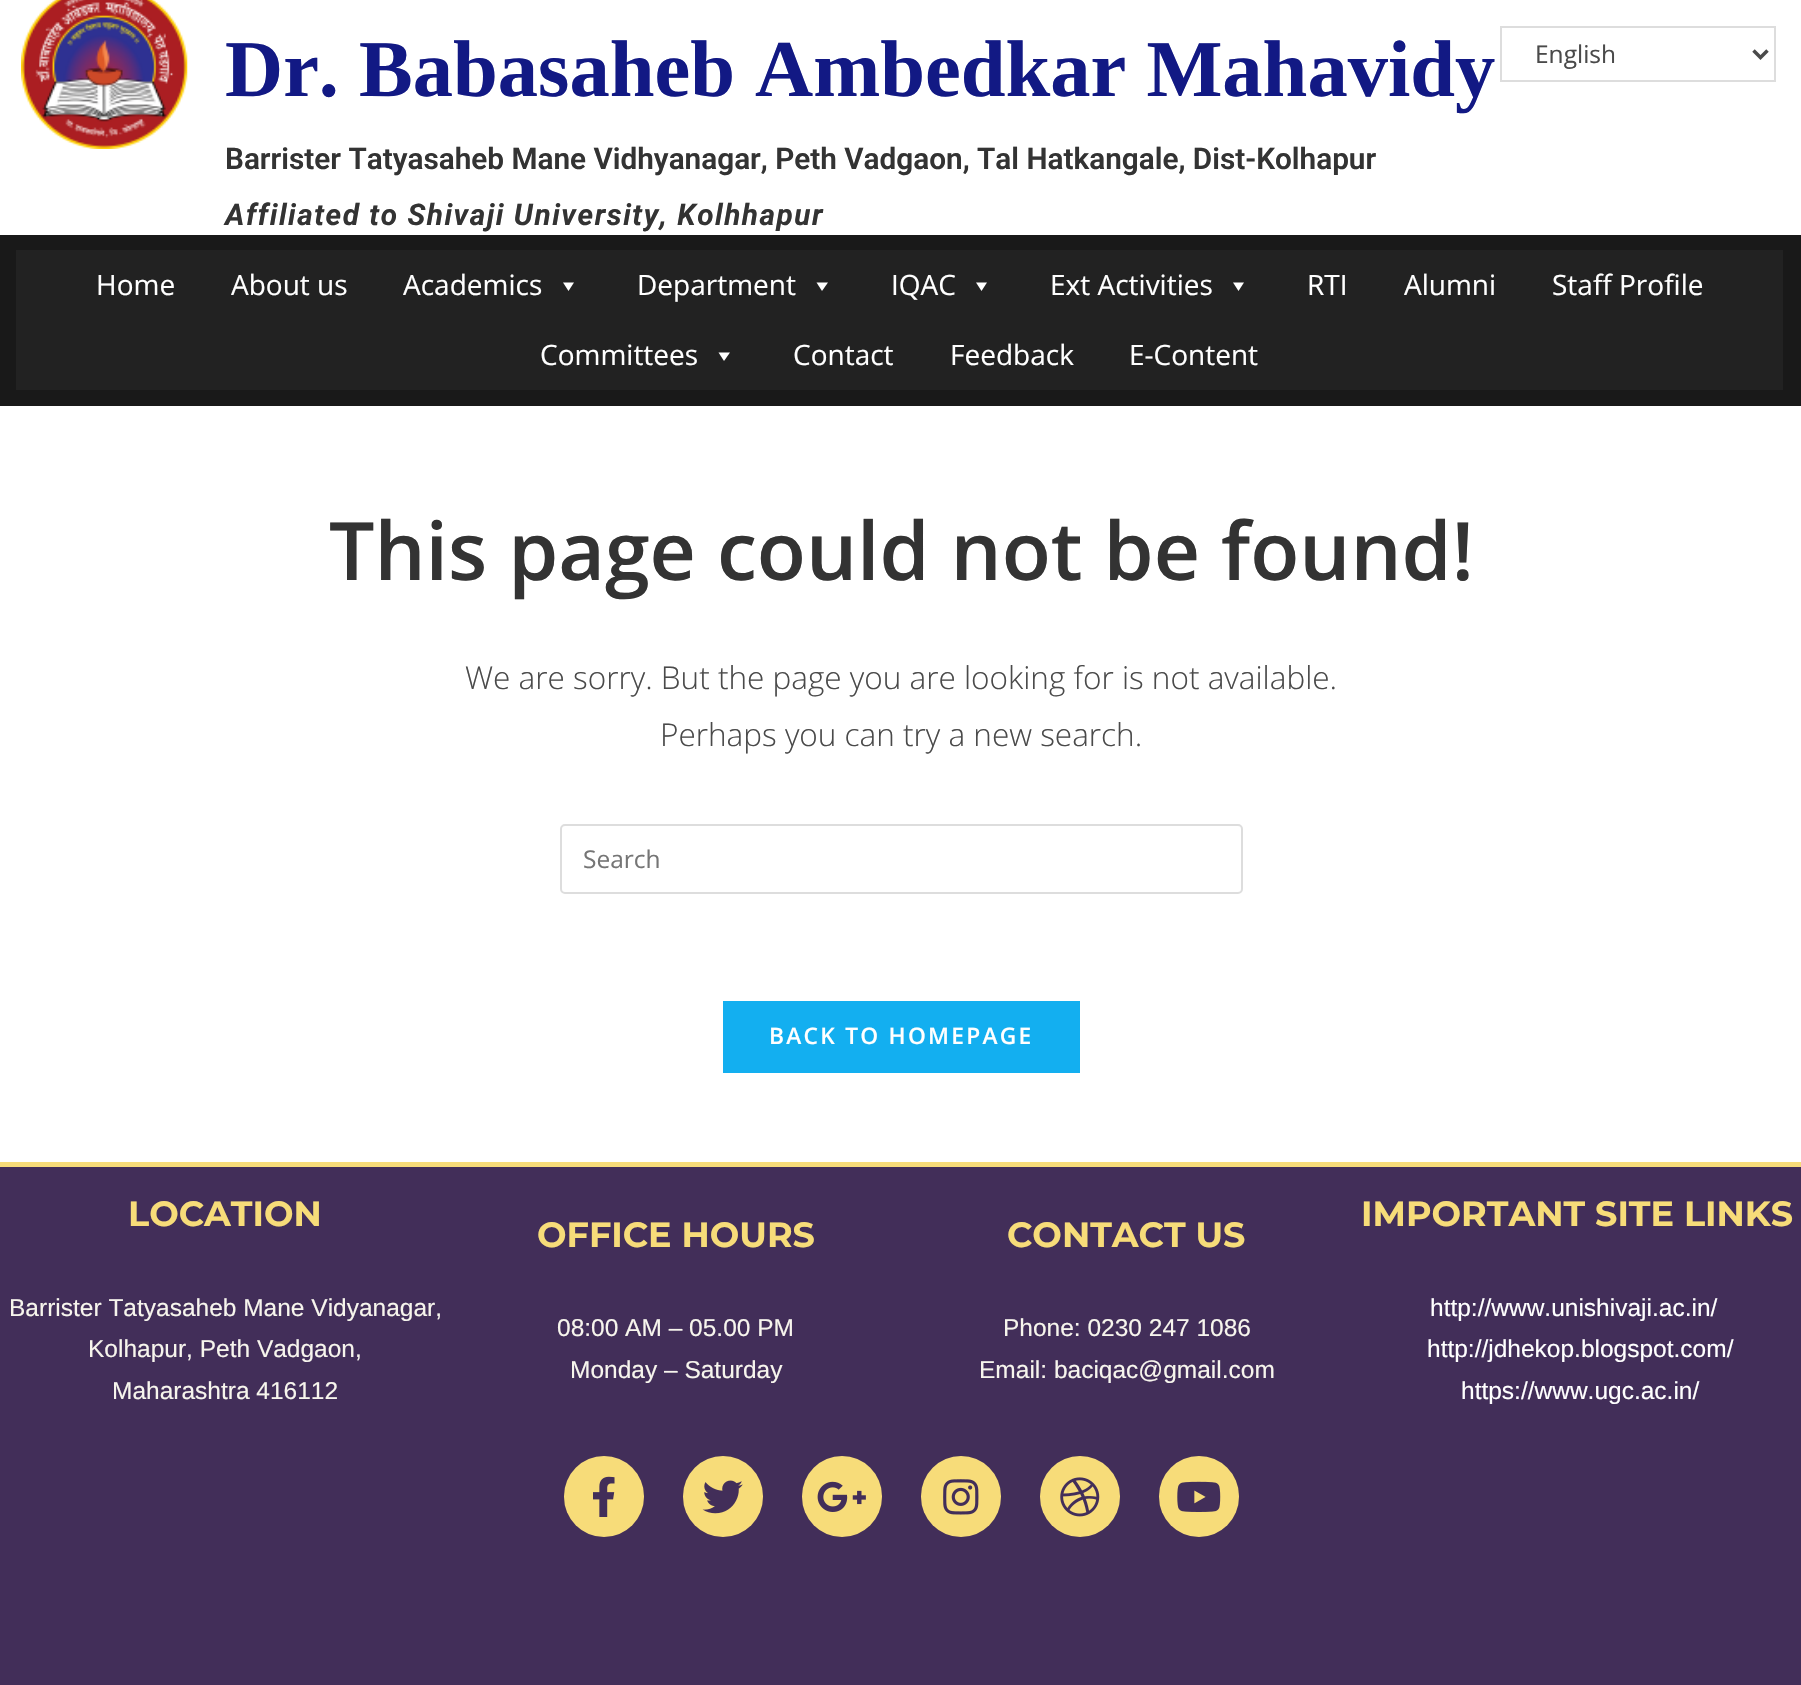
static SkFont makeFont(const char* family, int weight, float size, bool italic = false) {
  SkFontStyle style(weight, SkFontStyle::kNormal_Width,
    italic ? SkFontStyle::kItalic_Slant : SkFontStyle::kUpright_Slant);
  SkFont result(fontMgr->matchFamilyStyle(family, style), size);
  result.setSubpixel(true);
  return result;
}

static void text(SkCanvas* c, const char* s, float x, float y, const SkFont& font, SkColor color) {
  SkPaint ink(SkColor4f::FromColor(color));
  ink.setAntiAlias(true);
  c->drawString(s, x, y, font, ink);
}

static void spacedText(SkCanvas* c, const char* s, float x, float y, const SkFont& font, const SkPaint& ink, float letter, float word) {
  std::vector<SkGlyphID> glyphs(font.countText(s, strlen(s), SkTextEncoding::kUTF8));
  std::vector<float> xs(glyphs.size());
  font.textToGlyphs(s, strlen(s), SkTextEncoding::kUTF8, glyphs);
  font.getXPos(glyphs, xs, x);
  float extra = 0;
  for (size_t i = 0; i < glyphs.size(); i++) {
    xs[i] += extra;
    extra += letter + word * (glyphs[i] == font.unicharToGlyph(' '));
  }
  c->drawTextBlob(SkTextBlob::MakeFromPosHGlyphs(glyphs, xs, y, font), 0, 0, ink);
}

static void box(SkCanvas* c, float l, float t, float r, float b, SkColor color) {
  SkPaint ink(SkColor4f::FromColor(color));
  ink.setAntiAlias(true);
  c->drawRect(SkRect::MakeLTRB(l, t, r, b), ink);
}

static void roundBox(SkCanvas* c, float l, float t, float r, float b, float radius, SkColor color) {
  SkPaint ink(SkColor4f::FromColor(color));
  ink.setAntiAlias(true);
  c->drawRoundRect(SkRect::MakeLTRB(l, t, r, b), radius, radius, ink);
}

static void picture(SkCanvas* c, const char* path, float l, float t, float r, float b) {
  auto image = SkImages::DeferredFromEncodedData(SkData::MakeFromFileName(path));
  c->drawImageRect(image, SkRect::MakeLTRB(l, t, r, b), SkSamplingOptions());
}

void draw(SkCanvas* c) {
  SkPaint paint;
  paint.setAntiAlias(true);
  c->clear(0xffffffff);
  picture(c, "img_01.png", 21, 0, 188, 149);
  SkFont face1 = makeFont("Liberation Serif", 700, 80.5f);
  text(c, "Dr. Babasaheb Ambedkar Mahavidy", 225, 96, face1, 0xff121984);
  SkFont face2 = makeFont("Roboto", 600, 29.75f);
  text(c, "Barrister Tatyasaheb Mane Vidhyanagar, Peth Vadgaon, Tal Hatkangale, Dist-Kolhapur", 225, 169, face2, 0xff333333);
  SkFont face3 = makeFont("Roboto", 700, 29.75f, true);
  paint.setColor(0xff333333);
  spacedText(c, "Affiliated to Shivaji University, Kolhhapur", 225, 225, face3, paint, 1.55f, 0);
  box(c, 0, 235, 1801, 406, 0xff191919);
  box(c, 16, 250, 1783, 390, 0xff222222);
  SkFont face4 = makeFont("Open Sans", 400, 28);
  text(c, "Home", 96, 295, face4, 0xffffffff);
  text(c, "About us", 231, 295, face4, 0xffffffff);
  text(c, "Academics", 403, 295, face4, 0xffffffff);
  paint.setColor(0xffffffff);
  c->drawPath(SkPathBuilder().moveTo(574, 282.5f).lineTo(568.5f, 291).lineTo(563, 282.5f).close().detach(), paint);
  text(c, "Department", 637, 295, face4, 0xffffffff);
  c->drawPath(SkPathBuilder().moveTo(828, 282.5f).lineTo(822, 291).lineTo(816.5f, 282.5f).close().detach(), paint);
  text(c, "IQAC", 891, 295, face4, 0xffffffff);
  c->drawPath(SkPathBuilder().moveTo(987, 282.5f).lineTo(981.5f, 291).lineTo(976, 282.5f).close().detach(), paint);
  text(c, "Ext Activities", 1050, 295, face4, 0xffffffff);
  c->drawPath(SkPathBuilder().moveTo(1244, 282.5f).lineTo(1238.5f, 291).lineTo(1233, 282.5f).close().detach(), paint);
  text(c, "RTI", 1307, 295, face4, 0xffffffff);
  text(c, "Alumni", 1404, 295, face4, 0xffffffff);
  text(c, "Staff Profile", 1552, 295, face4, 0xffffffff);
  text(c, "Committees", 540, 365, face4, 0xffffffff);
  c->drawPath(SkPathBuilder().moveTo(730, 352.5f).lineTo(724, 361).lineTo(718.5f, 352.5f).close().detach(), paint);
  text(c, "Contact", 793, 365, face4, 0xffffffff);
  text(c, "Feedback", 950, 365, face4, 0xffffffff);
  text(c, "E-Content", 1129, 365, face4, 0xffffffff);
  SkFont face5 = makeFont("Open Sans", 600, 80.5f);
  text(c, "This page could not be found!", 329, 580, face5, 0xff333333);
  SkFont face6 = makeFont("Open Sans", 300, 31.5f);
  text(c, "We are sorry. But the page you are looking for is not available.", 465, 689, face6, 0xff4a4a4a);
  text(c, "Perhaps you can try a new search.", 660, 746, face6, 0xff4a4a4a);
  paint.setStyle(SkPaint::kStroke_Style);
  paint.setStrokeWidth(2);
  paint.setColor(0xffdddddd);
  c->drawRoundRect(SkRect::MakeLTRB(561, 825, 1242, 893), 4, 4, paint);
  SkFont face7 = makeFont("Open Sans", 400, 24.5f);
  text(c, "Search", 583, 868, face7, 0xff757575);
  box(c, 723, 1001, 1080, 1073, 0xff13aff0);
  SkFont face8 = makeFont("Open Sans", 600, 22.75f);
  paint.setStyle(SkPaint::kFill_Style);
  paint.setColor(0xffffffff);
  spacedText(c, "BACK TO HOMEPAGE", 769, 1044, face8, paint, 2.25f, 0);
  box(c, 0, 1167, 1801, 1685, 0xff422e59);
  box(c, 0, 1162, 1801, 1167, 0xfff7dc79);
  SkFont face9 = makeFont("Montserrat", 700, 35);
  text(c, "LOCATION", 128, 1226, face9, 0xfff7dc79);
  SkFont face10 = makeFont("Liberation Sans", 400, 24.5f);
  text(c, "Barrister Tatyasaheb Mane Vidyanagar,", 9, 1316, face10, 0xfff7f5ed);
  text(c, "Kolhapur, Peth Vadgaon,", 88, 1357, face10, 0xfff7f5ed);
  text(c, "Maharashtra 416112", 112, 1399, face10, 0xfff7f5ed);
  text(c, "OFFICE HOURS", 537, 1247, face9, 0xfff7dc79);
  text(c, "08:00 AM – 05.00 PM", 557, 1336, face10, 0xfff7f5ed);
  text(c, "Monday – Saturday", 570, 1378, face10, 0xfff7f5ed);
  text(c, "CONTACT US", 1007, 1247, face9, 0xfff7dc79);
  text(c, "Phone: 0230 247 1086", 1003, 1336, face10, 0xfff7f5ed);
  text(c, "Email: baciqac@gmail.com", 979, 1378, face10, 0xfff7f5ed);
  text(c, "IMPORTANT SITE LINKS", 1361, 1226, face9, 0xfff7dc79);
  text(c, "http://www.unishivaji.ac.in/", 1430, 1316, face10, 0xffffffff);
  text(c, "http://jdhekop.blogspot.com/", 1427, 1357, face10, 0xffffffff);
  text(c, "https://www.ugc.ac.in/", 1461, 1399, face10, 0xffffffff);
  roundBox(c, 564, 1456, 644, 1537, 40, 0xfff7dc79);
  picture(c, "img_02.png", 593, 1476, 615, 1517);
  roundBox(c, 683, 1456, 763, 1537, 40, 0xfff7dc79);
  picture(c, "img_03.png", 702, 1480, 743, 1514);
  roundBox(c, 802, 1456, 882, 1537, 40, 0xfff7dc79);
  picture(c, "img_04.png", 817, 1481, 866, 1512);
  roundBox(c, 921, 1456, 1001, 1537, 40, 0xfff7dc79);
  picture(c, "img_05.png", 943, 1479, 979, 1515);
  roundBox(c, 1040, 1456, 1120, 1537, 40, 0xfff7dc79);
  picture(c, "img_06.png", 1060, 1477, 1100, 1517);
  roundBox(c, 1159, 1456, 1239, 1537, 40, 0xfff7dc79);
  picture(c, "img_07.png", 1177, 1481, 1221, 1512);
  paint.setStyle(SkPaint::kStroke_Style);
  paint.setColor(0xffdddddd);
  c->drawRect(SkRect::MakeLTRB(1501, 27, 1775, 81), paint);
  paint.setStrokeWidth(3.5f);
  paint.setColor(0xff4a4a4a);
  c->drawPath(SkPathBuilder().moveTo(1753.5f, 50.5f).lineTo(1760.5f, 57.5f).lineTo(1767.5f, 50.5f).detach(), paint);
  text(c, "English", 1535, 63, face7, 0xff4a4a4a);
}
